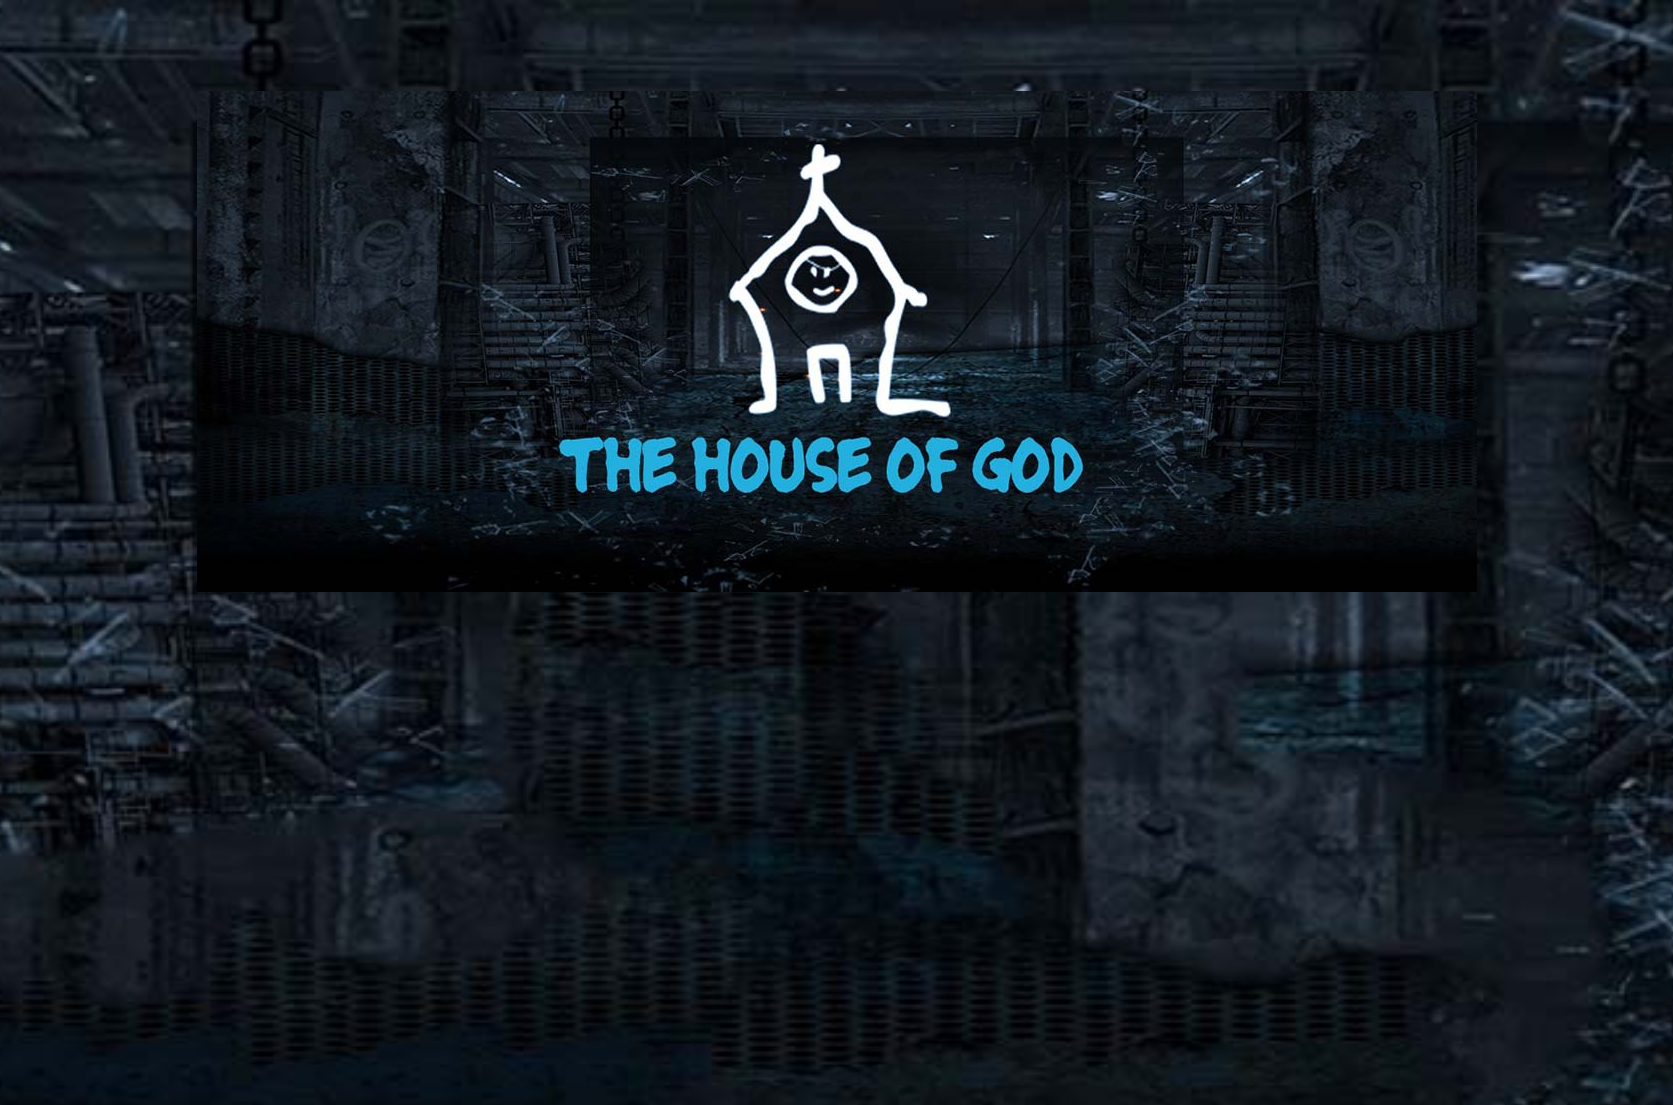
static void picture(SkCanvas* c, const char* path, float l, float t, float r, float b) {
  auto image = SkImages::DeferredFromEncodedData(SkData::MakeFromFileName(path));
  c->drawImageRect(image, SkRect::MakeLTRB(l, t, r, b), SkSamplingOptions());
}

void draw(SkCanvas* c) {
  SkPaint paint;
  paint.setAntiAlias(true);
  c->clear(0xffffffff);
  picture(c, "img_01.png", 0, 0, 1673, 1105);
  picture(c, "img_02.png", 197, 91, 1477, 592);
}
